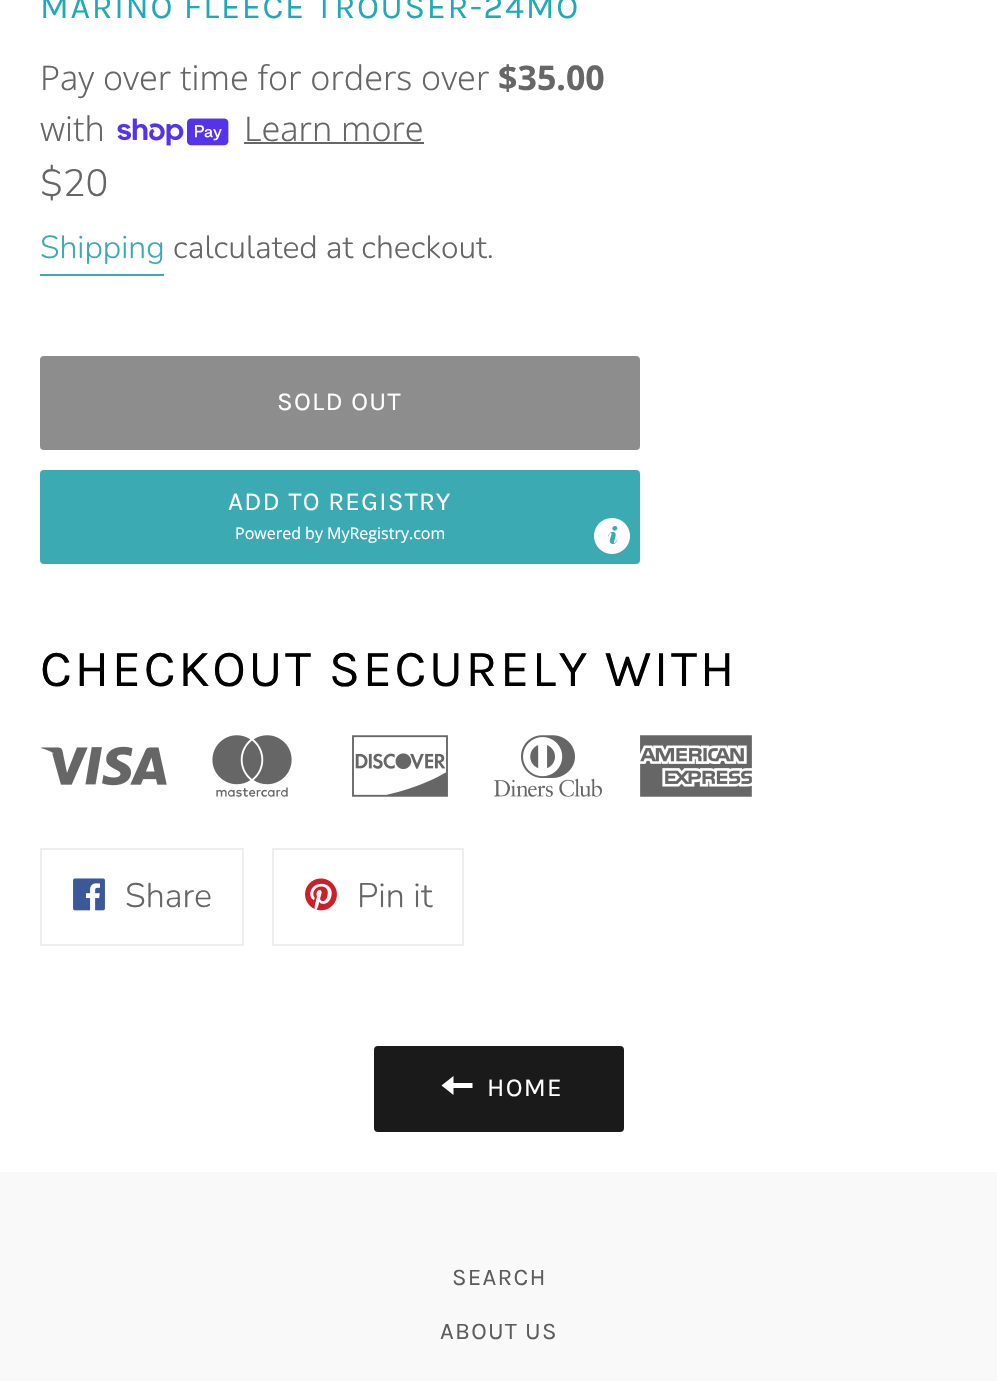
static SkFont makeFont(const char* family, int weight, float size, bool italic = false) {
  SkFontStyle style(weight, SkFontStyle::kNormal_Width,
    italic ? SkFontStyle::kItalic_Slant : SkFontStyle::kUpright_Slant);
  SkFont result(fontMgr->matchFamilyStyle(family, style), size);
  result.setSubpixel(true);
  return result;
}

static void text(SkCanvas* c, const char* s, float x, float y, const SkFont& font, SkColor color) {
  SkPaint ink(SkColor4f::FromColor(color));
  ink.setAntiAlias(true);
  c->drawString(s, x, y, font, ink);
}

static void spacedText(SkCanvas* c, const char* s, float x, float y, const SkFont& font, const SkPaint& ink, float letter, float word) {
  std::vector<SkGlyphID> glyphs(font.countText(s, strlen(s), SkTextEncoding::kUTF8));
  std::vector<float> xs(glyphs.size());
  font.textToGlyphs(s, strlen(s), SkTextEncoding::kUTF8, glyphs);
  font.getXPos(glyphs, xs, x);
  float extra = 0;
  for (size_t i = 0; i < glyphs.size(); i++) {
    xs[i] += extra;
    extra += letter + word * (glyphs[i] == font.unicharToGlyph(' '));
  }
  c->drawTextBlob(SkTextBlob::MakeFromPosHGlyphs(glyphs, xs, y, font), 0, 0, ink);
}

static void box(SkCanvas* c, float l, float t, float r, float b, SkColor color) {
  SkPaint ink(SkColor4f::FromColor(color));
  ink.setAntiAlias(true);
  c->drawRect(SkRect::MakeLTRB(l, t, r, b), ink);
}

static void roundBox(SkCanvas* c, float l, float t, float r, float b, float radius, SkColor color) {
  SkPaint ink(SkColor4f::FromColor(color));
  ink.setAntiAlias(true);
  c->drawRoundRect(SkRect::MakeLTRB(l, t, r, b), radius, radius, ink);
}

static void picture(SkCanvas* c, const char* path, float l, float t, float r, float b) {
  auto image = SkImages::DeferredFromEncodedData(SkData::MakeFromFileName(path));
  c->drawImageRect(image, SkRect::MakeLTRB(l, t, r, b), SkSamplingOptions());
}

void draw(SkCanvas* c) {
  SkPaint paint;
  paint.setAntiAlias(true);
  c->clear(0xffffffff);
  SkFont face1 = makeFont("Karla", 400, 34);
  paint.setColor(0xff20aab6);
  spacedText(c, "MARINO FLEECE TROUSER-24MO", 40, 18, face1, paint, 1.7f, 0);
  SkFont face2 = makeFont("Noto Sans", 300, 34);
  text(c, "Pay over time for orders over", 40, 90, face2, 0xff666666);
  SkFont face3 = makeFont("Noto Sans", 700, 34);
  text(c, "$35.00", 498, 90, face3, 0xff666666);
  text(c, "with", 40, 141, face2, 0xff666666);
  picture(c, "img_01.png", 117, 118, 229, 146);
  text(c, "Learn more", 244, 141, face2, 0xff666666);
  box(c, 244, 142, 424, 144, 0xff666666);
  SkFont face4 = makeFont("Nunito", 300, 38);
  text(c, "$20", 40, 196, face4, 0xff666666);
  SkFont face5 = makeFont("Nunito", 300, 32);
  text(c, "Shipping", 40, 258, face5, 0xff3baab3);
  box(c, 40, 274, 164, 276, 0xff3baab3);
  text(c, "calculated at checkout.", 173, 258, face5, 0xff666666);
  paint.setColor(0xff8d8d8d);
  c->drawRoundRect(SkRect::MakeLTRB(42, 358, 638, 448), 2, 2, paint);
  paint.setStyle(SkPaint::kStroke_Style);
  paint.setStrokeWidth(4);
  c->drawRoundRect(SkRect::MakeLTRB(42, 358, 638, 448), 2, 2, paint);
  SkFont face6 = makeFont("Karla", 400, 26);
  paint.setStyle(SkPaint::kFill_Style);
  paint.setColor(0xffffffff);
  spacedText(c, "SOLD OUT", 277, 410, face6, paint, 1.25f, 0);
  paint.setColor(0xff3baab3);
  c->drawRoundRect(SkRect::MakeLTRB(41, 471, 639, 563), 3, 3, paint);
  paint.setStyle(SkPaint::kStroke_Style);
  paint.setStrokeWidth(2);
  c->drawRoundRect(SkRect::MakeLTRB(41, 471, 639, 563), 3, 3, paint);
  paint.setStyle(SkPaint::kFill_Style);
  paint.setColor(0xffffffff);
  spacedText(c, "ADD TO REGISTRY", 228, 510, face6, paint, 1.25f, 0);
  SkFont face7 = makeFont("Open Sans", 400, 16);
  text(c, "Powered by MyRegistry.com", 235, 539, face7, 0xffffffff);
  picture(c, "img_02.png", 594, 518, 630, 554);
  SkFont face8 = makeFont("Karla", 400, 52);
  paint.setColor(0xff000000);
  spacedText(c, "CHECKOUT SECURELY WITH", 40, 686, face8, paint, 2.6f, 0);
  picture(c, "img_03.png", 41, 746, 167, 786);
  picture(c, "img_04.png", 212, 735, 292, 797);
  picture(c, "img_05.png", 352, 735, 448, 797);
  picture(c, "img_06.png", 494, 735, 602, 797);
  picture(c, "img_07.png", 640, 735, 752, 797);
  paint.setStyle(SkPaint::kStroke_Style);
  paint.setColor(0xffeeeeee);
  c->drawRect(SkRect::MakeLTRB(41, 849, 243, 945), paint);
  picture(c, "img_08.png", 73, 878, 105, 911);
  SkFont face9 = makeFont("Nunito", 300, 34);
  text(c, "Share", 125, 907, face9, 0xff666666);
  c->drawRect(SkRect::MakeLTRB(273, 849, 463, 945), paint);
  picture(c, "img_09.png", 305, 878, 337, 911);
  text(c, "Pin it", 357, 907, face9, 0xff666666);
  roundBox(c, 374, 1046, 624, 1132, 4, 0xff1a1a1a);
  paint.setStyle(SkPaint::kFill_Style);
  paint.setColor(0xffffffff);
  c->drawPath(SkPathBuilder().moveTo(453.5f, 1083).lineTo(453.5f, 1076).lineTo(441.5f, 1085.5f).lineTo(453.5f, 1095).lineTo(453.5f, 1088).lineTo(472.5f, 1088).lineTo(472.5f, 1083).close().detach(), paint);
  spacedText(c, "HOME", 487, 1096, face6, paint, 1.25f, 0);
  box(c, 0, 1172, 997, 1381, 0xfff9f9f9);
  SkFont face10 = makeFont("Karla", 400, 24);
  paint.setColor(0xff5c5c5c);
  spacedText(c, "SEARCH", 452, 1285, face10, paint, 1.25f, 0);
  spacedText(c, "ABOUT US", 440, 1339, face10, paint, 1.25f, 0);
}
